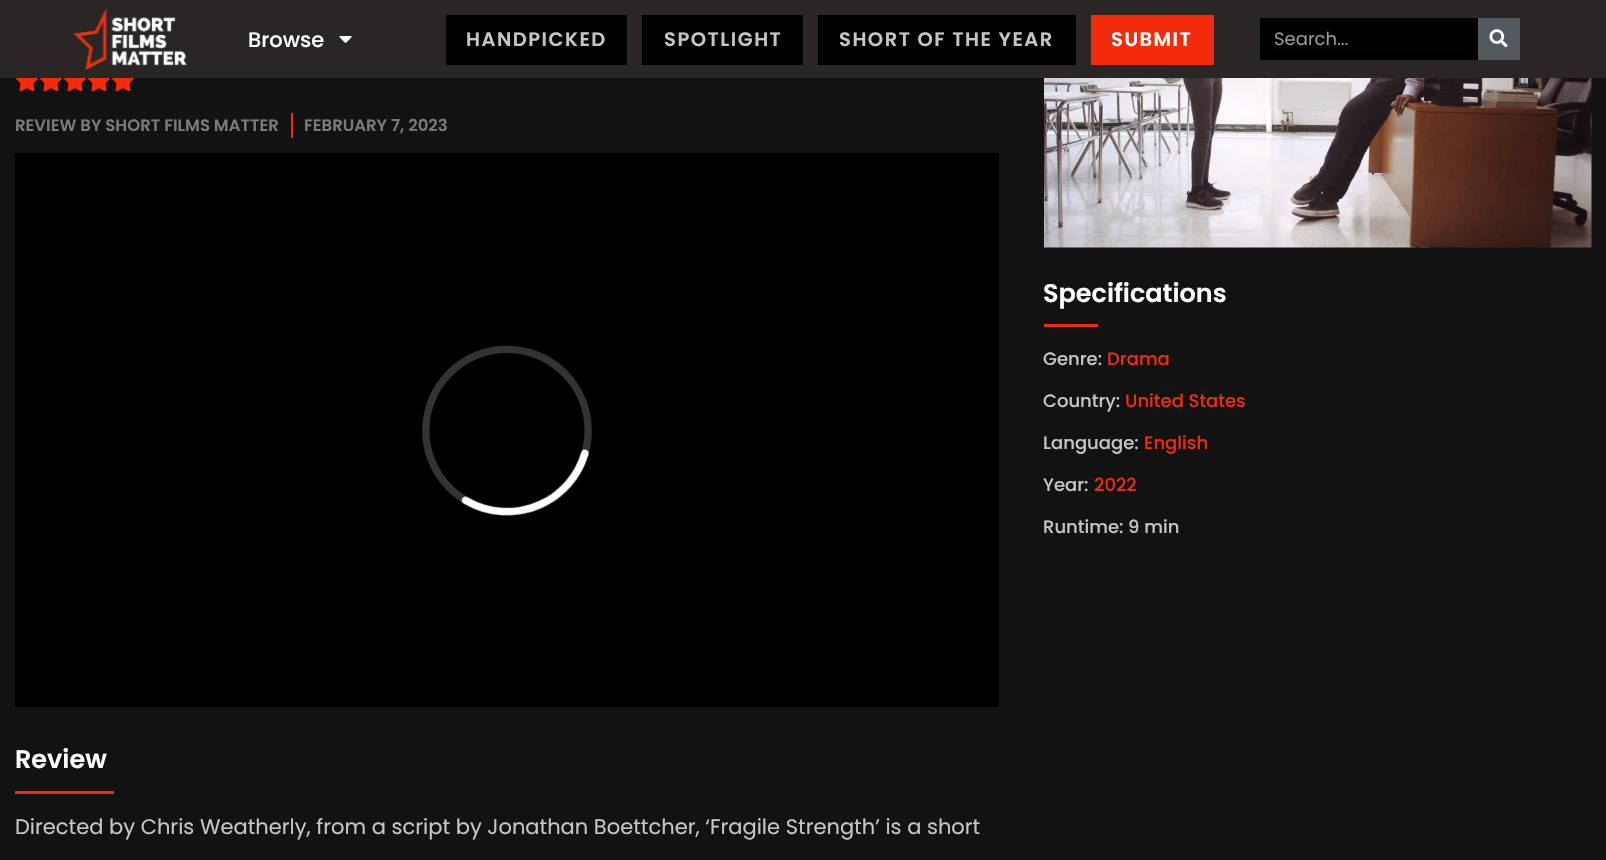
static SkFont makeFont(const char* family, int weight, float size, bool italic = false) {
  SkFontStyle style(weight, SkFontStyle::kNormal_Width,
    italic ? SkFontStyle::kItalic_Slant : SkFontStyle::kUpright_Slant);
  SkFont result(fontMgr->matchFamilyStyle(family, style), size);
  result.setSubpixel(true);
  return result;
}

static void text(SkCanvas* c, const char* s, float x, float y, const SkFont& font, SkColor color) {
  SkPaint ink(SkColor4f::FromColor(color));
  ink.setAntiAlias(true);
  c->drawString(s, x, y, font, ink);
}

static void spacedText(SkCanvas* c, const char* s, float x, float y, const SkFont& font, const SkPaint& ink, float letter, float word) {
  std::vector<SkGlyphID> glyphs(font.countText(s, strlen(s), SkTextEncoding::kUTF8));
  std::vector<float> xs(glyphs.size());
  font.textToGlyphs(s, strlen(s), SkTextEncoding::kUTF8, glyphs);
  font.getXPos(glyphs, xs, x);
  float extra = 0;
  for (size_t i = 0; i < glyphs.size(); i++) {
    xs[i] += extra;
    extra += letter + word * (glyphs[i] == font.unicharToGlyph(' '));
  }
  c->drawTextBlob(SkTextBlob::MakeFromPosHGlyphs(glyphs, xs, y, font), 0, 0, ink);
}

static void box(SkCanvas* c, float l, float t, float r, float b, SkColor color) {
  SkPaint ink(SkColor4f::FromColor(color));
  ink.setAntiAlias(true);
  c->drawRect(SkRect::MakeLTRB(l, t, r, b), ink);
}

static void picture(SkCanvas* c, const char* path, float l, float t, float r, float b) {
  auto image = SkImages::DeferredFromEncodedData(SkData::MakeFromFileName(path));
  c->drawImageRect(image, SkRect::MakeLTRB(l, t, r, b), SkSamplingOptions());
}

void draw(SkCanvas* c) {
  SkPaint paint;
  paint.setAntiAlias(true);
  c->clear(0xff131212);
  box(c, 0, 0, 1606, 78, 0xff2b2626);
  picture(c, "img_01.png", 73, 8, 187, 70);
  SkFont face1 = makeFont("Poppins", 500, 21);
  text(c, "Browse", 248, 47, face1, 0xffffffff);
  picture(c, "img_02.png", 339, 36, 352, 43);
  box(c, 446, 15, 627, 65, 0xff000000);
  SkFont face2 = makeFont("Poppins", 600, 19.5f);
  paint.setColor(0xffc8c4c4);
  spacedText(c, "HANDPICKED", 466, 46, face2, paint, 1.5f, 0);
  box(c, 642, 15, 803, 65, 0xff000000);
  spacedText(c, "SPOTLIGHT", 664, 46, face2, paint, 1.5f, 0);
  box(c, 818, 15, 1076, 65, 0xff000000);
  spacedText(c, "SHORT OF THE YEAR", 839, 46, face2, paint, 1.5f, 0);
  box(c, 1091, 15, 1214, 65, 0xfff22b0c);
  paint.setColor(0xffffffff);
  spacedText(c, "SUBMIT", 1111, 46, face2, paint, 1.5f, 0);
  box(c, 1260, 18, 1478, 60, 0xff000000);
  SkFont face3 = makeFont("Poppins", 400, 18);
  text(c, "Search...", 1274, 45, face3, 0xff999999);
  box(c, 1478, 18, 1520, 60, 0xff54595f);
  picture(c, "img_03.png", 1489, 29, 1508, 48);
  picture(c, "img_04.png", 16, 78, 38, 91);
  picture(c, "img_05.png", 16, 78, 38, 92);
  picture(c, "img_04.png", 40, 78, 62, 91);
  picture(c, "img_05.png", 40, 78, 62, 92);
  picture(c, "img_04.png", 64, 78, 86, 91);
  picture(c, "img_05.png", 64, 78, 86, 92);
  picture(c, "img_04.png", 88, 78, 110, 91);
  picture(c, "img_05.png", 88, 78, 110, 92);
  picture(c, "img_04.png", 112, 78, 134, 91);
  picture(c, "img_05.png", 112, 78, 134, 92);
  SkFont face4 = makeFont("Poppins", 600, 16.5f);
  text(c, "REVIEW BY SHORT FILMS MATTER", 15, 131, face4, 0xff7a7a7a);
  box(c, 291, 113, 293, 138, 0xfff22b0c);
  text(c, "FEBRUARY 7, 2023", 304, 131, face4, 0xff7a7a7a);
  box(c, 15, 153, 999, 707, 0xff000000);
  picture(c, "img_06.png", 422, 345, 592, 516);
  SkFont face5 = makeFont("Poppins", 600, 25.5f);
  text(c, "Review", 15, 768, face5, 0xffffffff);
  box(c, 15, 791, 114, 794, 0xfff22b0c);
  SkFont face6 = makeFont("Poppins", 400, 21);
  text(c, "Directed by Chris Weatherly, from a script by Jonathan Boettcher, ‘Fragile Strength’ is a short", 15, 834, face6, 0xffc8c4c4);
  picture(c, "img_07.png", 1044, 78, 1592, 248);
  text(c, "Specifications", 1043, 302, face5, 0xffffffff);
  box(c, 1044, 324, 1098, 327, 0xfff22b0c);
  SkFont face7 = makeFont("Poppins", 500, 18);
  text(c, "Genre:", 1043, 365, face7, 0xffc8c4c4);
  text(c, "Drama", 1107, 365, face7, 0xfff22b0c);
  text(c, "Country:", 1043, 407, face7, 0xffc8c4c4);
  text(c, "United States", 1125, 407, face7, 0xfff22b0c);
  text(c, "Language:", 1043, 449, face7, 0xffc8c4c4);
  text(c, "English", 1144, 449, face7, 0xfff22b0c);
  text(c, "Year:", 1043, 491, face7, 0xffc8c4c4);
  text(c, "2022", 1094, 491, face7, 0xfff22b0c);
  text(c, "Runtime: 9 min", 1043, 533, face7, 0xffc8c4c4);
}
